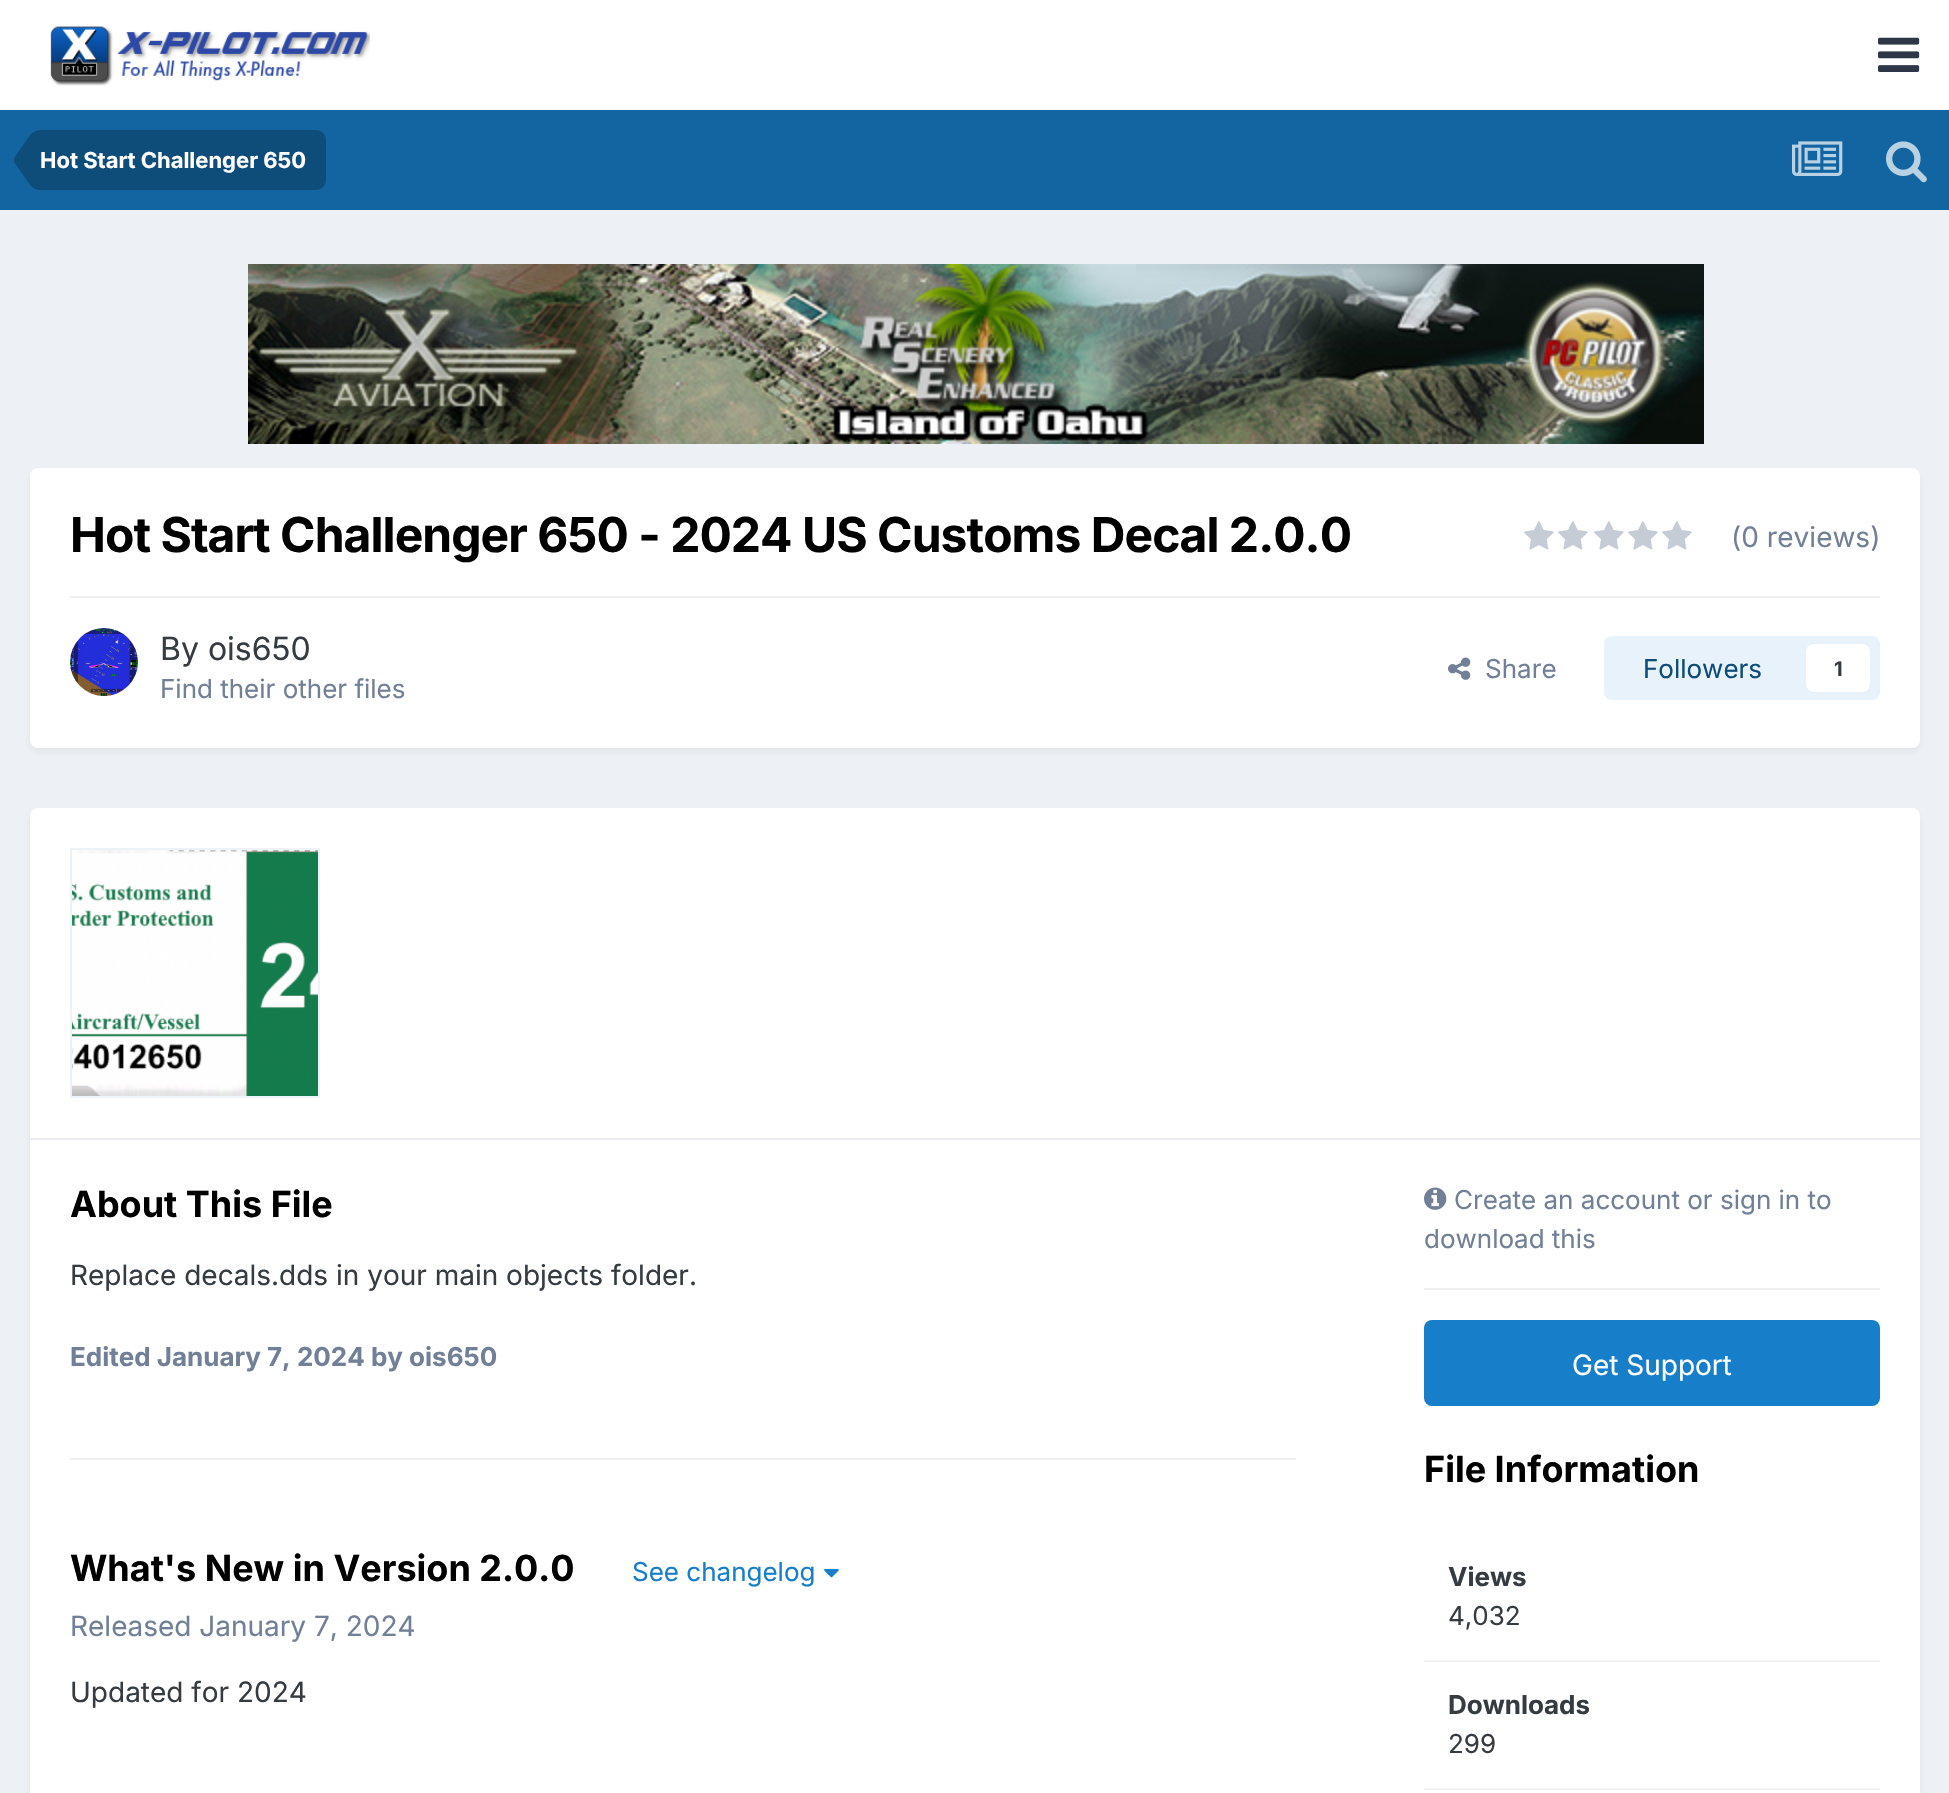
static SkFont makeFont(const char* family, int weight, float size, bool italic = false) {
  SkFontStyle style(weight, SkFontStyle::kNormal_Width,
    italic ? SkFontStyle::kItalic_Slant : SkFontStyle::kUpright_Slant);
  SkFont result(fontMgr->matchFamilyStyle(family, style), size);
  result.setSubpixel(true);
  return result;
}

static void text(SkCanvas* c, const char* s, float x, float y, const SkFont& font, SkColor color) {
  SkPaint ink(SkColor4f::FromColor(color));
  ink.setAntiAlias(true);
  c->drawString(s, x, y, font, ink);
}

static void spacedText(SkCanvas* c, const char* s, float x, float y, const SkFont& font, const SkPaint& ink, float letter, float word) {
  std::vector<SkGlyphID> glyphs(font.countText(s, strlen(s), SkTextEncoding::kUTF8));
  std::vector<float> xs(glyphs.size());
  font.textToGlyphs(s, strlen(s), SkTextEncoding::kUTF8, glyphs);
  font.getXPos(glyphs, xs, x);
  float extra = 0;
  for (size_t i = 0; i < glyphs.size(); i++) {
    xs[i] += extra;
    extra += letter + word * (glyphs[i] == font.unicharToGlyph(' '));
  }
  c->drawTextBlob(SkTextBlob::MakeFromPosHGlyphs(glyphs, xs, y, font), 0, 0, ink);
}

static void box(SkCanvas* c, float l, float t, float r, float b, SkColor color) {
  SkPaint ink(SkColor4f::FromColor(color));
  ink.setAntiAlias(true);
  c->drawRect(SkRect::MakeLTRB(l, t, r, b), ink);
}

static void roundBox(SkCanvas* c, float l, float t, float r, float b, float radius, SkColor color) {
  SkPaint ink(SkColor4f::FromColor(color));
  ink.setAntiAlias(true);
  c->drawRoundRect(SkRect::MakeLTRB(l, t, r, b), radius, radius, ink);
}

static void picture(SkCanvas* c, const char* path, float l, float t, float r, float b) {
  auto image = SkImages::DeferredFromEncodedData(SkData::MakeFromFileName(path));
  c->drawImageRect(image, SkRect::MakeLTRB(l, t, r, b), SkSamplingOptions());
}

void draw(SkCanvas* c) {
  SkPaint paint;
  paint.setAntiAlias(true);
  c->clear(0xffedf0f4);
  box(c, 0, 0, 1949, 110, 0xffffffff);
  picture(c, "img_01.png", 50, 26, 370, 86);
  picture(c, "img_02.png", 1878, 37, 1920, 72);
  box(c, 0, 110, 1949, 210, 0xff1265a1);
  paint.setColor(0xff0e4c79);
  c->drawPath(SkPathBuilder().moveTo(40, 130).lineTo(316, 130).cubicTo(321.5f, 130, 326, 134.5f, 326, 140).lineTo(326, 180).cubicTo(326, 185.5f, 321.5f, 190, 316, 190).lineTo(40, 190).close().detach(), paint);
  c->drawPath(SkPathBuilder().moveTo(40, 160).lineTo(40, 190).cubicTo(36.5f, 190, 33, 188, 30, 185).lineTo(15, 163.5f).cubicTo(14.5f, 162.5f, 14, 161.5f, 14, 160).close().moveTo(40, 160).lineTo(14, 160).cubicTo(14, 158.5f, 14.5f, 157.5f, 15, 156.5f).lineTo(30, 135).cubicTo(33, 132, 36.5f, 130, 40, 130).close().detach(), paint);
  SkFont face1 = makeFont("Inter", 700, 22);
  text(c, "Hot Start Challenger 650", 40, 168, face1, 0xffffffff);
  picture(c, "img_03.png", 1792, 141, 1843, 176);
  picture(c, "img_04.png", 1886, 141, 1927, 183);
  picture(c, "img_05.png", 248, 264, 1704, 444);
  paint.setColor(0x1a2d3748);
  paint.setMaskFilter(SkMaskFilter::MakeBlur(kNormal_SkBlurStyle, 4));
  c->drawRoundRect(SkRect::MakeLTRB(32, 474, 1918, 750), 6, 6, paint);
  paint.setMaskFilter(nullptr);
  roundBox(c, 30, 468, 1920, 748, 8, 0xffffffff);
  SkFont face2 = makeFont("Inter", 700, 48);
  paint.setColor(0xff000000);
  spacedText(c, "Hot Start Challenger 650 - 2024 US Customs Decal 2.0.0", 70, 552, face2, paint, -0.95f, 0);
  picture(c, "img_06.png", 1524, 521, 1554, 550);
  picture(c, "img_06.png", 1558, 521, 1588, 550);
  picture(c, "img_06.png", 1594, 521, 1624, 550);
  picture(c, "img_06.png", 1628, 521, 1658, 550);
  picture(c, "img_06.png", 1662, 521, 1692, 550);
  SkFont face3 = makeFont("Inter", 400, 28);
  text(c, "(0 reviews)", 1731, 547, face3, 0xff718096);
  box(c, 70, 596, 1880, 598, 0xffefeff0);
  picture(c, "img_07.png", 70, 628, 138, 696);
  SkFont face4 = makeFont("Inter", 400, 32);
  text(c, "By ois650", 160, 660, face4, 0xff353c41);
  SkFont face5 = makeFont("Inter", 400, 26);
  text(c, "Find their other files", 160, 698, face5, 0xff718096);
  picture(c, "img_08.png", 1448, 657, 1471, 680);
  text(c, "Share", 1485, 678, face5, 0xff718096);
  roundBox(c, 1604, 636, 1880, 700, 8, 0xffe8f2fa);
  text(c, "Followers", 1643, 678, face5, 0xff0e4c79);
  roundBox(c, 1806, 644, 1870, 692, 8, 0xffffffff);
  SkFont face6 = makeFont("Inter", 700, 20);
  text(c, "1", 1834, 676, face6, 0xff353c41);
  paint.setColor(0x1a2d3748);
  paint.setMaskFilter(SkMaskFilter::MakeBlur(kNormal_SkBlurStyle, 4));
  c->drawRoundRect(SkRect::MakeLTRB(32, 814, 1918, 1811), 6, 6, paint);
  paint.setMaskFilter(nullptr);
  roundBox(c, 30, 808, 1920, 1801, 8, 0xffffffff);
  box(c, 30, 1138, 1920, 1140, 0xffeaecef);
  picture(c, "img_09.png", 72, 850, 318, 1096);
  paint.setStyle(SkPaint::kStroke_Style);
  paint.setStrokeWidth(2);
  paint.setColor(0xffedf2f7);
  c->drawRect(SkRect::MakeLTRB(71, 849, 319, 1097), paint);
  SkFont face7 = makeFont("Inter", 700, 36);
  text(c, "About This File", 70, 1217, face7, 0xff000000);
  text(c, "Replace decals.dds in your main objects folder.", 70, 1285, face3, 0xff353c41);
  SkFont face8 = makeFont("Inter", 700, 26);
  text(c, "Edited January 7, 2024 by ois650", 70, 1366, face8, 0xff718096);
  box(c, 70, 1458, 1296, 1460, 0xffefeff0);
  text(c, "What's New in Version 2.0.0", 70, 1581, face7, 0xff000000);
  text(c, "See changelog", 632, 1581, face5, 0xff177ec9);
  picture(c, "img_10.png", 824, 1569, 839, 1578);
  text(c, "Released January 7, 2024", 70, 1636, face3, 0xff718096);
  text(c, "Updated for 2024", 70, 1702, face3, 0xff353c41);
  picture(c, "img_11.png", 1424, 1187, 1447, 1210);
  text(c, "Create an account or sign in to", 1454, 1209, face5, 0xff718096);
  text(c, "download this", 1424, 1248, face5, 0xff718096);
  box(c, 1424, 1288, 1880, 1290, 0xffefeff0);
  roundBox(c, 1424, 1320, 1880, 1406, 8, 0xff177ec9);
  text(c, "Get Support", 1572, 1375, face3, 0xffffffff);
  text(c, "File Information", 1424, 1482, face7, 0xff000000);
  box(c, 1424, 1660, 1880, 1662, 0xfff1f2f5);
  text(c, "Views", 1448, 1586, face8, 0xff353c41);
  text(c, "4,032", 1448, 1625, face5, 0xff353c41);
  box(c, 1424, 1788, 1880, 1790, 0xfff1f2f5);
  text(c, "Downloads", 1448, 1714, face8, 0xff353c41);
  text(c, "299", 1448, 1753, face5, 0xff353c41);
}
